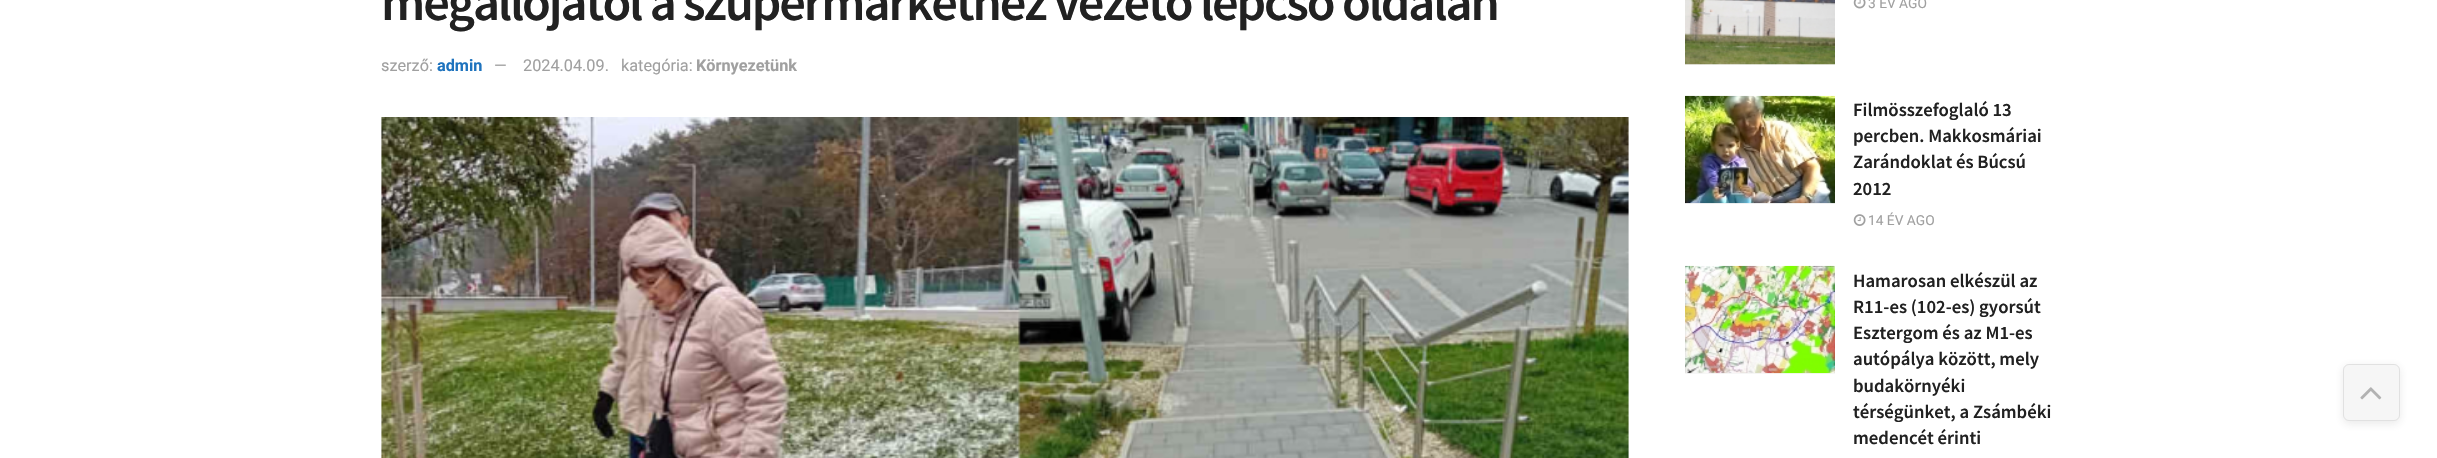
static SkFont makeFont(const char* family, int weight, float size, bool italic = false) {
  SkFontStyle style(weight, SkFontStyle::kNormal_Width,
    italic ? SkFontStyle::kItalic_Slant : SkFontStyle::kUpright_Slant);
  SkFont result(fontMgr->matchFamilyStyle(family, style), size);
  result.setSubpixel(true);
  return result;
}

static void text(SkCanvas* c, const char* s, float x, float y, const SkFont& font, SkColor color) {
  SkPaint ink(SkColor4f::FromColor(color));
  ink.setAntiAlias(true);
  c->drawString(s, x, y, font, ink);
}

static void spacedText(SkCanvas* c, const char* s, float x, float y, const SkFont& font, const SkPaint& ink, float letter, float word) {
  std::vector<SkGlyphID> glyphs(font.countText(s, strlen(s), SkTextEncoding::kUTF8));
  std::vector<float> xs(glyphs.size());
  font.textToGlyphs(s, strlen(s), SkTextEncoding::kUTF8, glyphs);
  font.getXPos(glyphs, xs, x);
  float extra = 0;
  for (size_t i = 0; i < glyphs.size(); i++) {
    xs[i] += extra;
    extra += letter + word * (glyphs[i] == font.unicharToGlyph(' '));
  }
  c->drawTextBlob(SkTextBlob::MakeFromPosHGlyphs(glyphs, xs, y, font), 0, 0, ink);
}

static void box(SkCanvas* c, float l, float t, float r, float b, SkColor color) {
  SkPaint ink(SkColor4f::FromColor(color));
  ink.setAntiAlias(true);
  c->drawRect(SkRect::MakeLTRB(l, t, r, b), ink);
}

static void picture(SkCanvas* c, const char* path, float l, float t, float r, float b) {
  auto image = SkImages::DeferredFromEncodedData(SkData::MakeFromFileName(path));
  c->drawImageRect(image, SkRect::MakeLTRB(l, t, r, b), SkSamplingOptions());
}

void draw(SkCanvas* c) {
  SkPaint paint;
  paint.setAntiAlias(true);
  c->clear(0xffffffff);
  SkFont face1 = makeFont("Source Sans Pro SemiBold", 600, 52.5f);
  paint.setColor(0xff212121);
  spacedText(c, "megállójától a szupermarkethez vezető lépcső oldalán", 381, 20, face1, paint, -2.1f, 0);
  SkFont face2 = makeFont("Roboto", 400, 16.25f);
  text(c, "szerző:", 381, 71, face2, 0xffa0a0a0);
  SkFont face3 = makeFont("Roboto", 700, 16.25f);
  text(c, "admin", 437, 71, face3, 0xff1e73be);
  text(c, "—", 494, 71, face2, 0xffa0a0a0);
  text(c, "2024.04.09.", 523, 71, face2, 0xffa0a0a0);
  text(c, "kategória:", 621, 71, face2, 0xffa0a0a0);
  text(c, "Környezetünk", 696, 71, face3, 0xffa0a0a0);
  box(c, 381, 118, 1629, 458, 0xfff7f7f7);
  picture(c, "img_01.png", 381, 117, 1629, 118);
  picture(c, "img_02.png", 381, 117, 1629, 458);
  box(c, 1685, 64, 1835, 65, 0xfff7f7f7);
  picture(c, "img_03.png", 1685, 0, 1835, 65);
  picture(c, "img_04.png", 1853, 0, 1866, 9);
  SkFont face4 = makeFont("Roboto", 400, 13.75f);
  text(c, "3 ÉV AGO", 1868, 8, face4, 0xffa0a0a0);
  box(c, 1685, 203, 1835, 204, 0xfff7f7f7);
  picture(c, "img_05.png", 1685, 95, 1835, 204);
  SkFont face5 = makeFont("Source Sans Pro SemiBold", 600, 18.75f);
  text(c, "Filmösszefoglaló 13", 1853, 116, face5, 0xff212121);
  text(c, "percben. Makkosmáriai", 1853, 142, face5, 0xff212121);
  text(c, "Zarándoklat és Búcsú", 1853, 168, face5, 0xff212121);
  text(c, "2012", 1853, 195, face5, 0xff212121);
  picture(c, "img_06.png", 1853, 214, 1866, 226);
  text(c, "14 ÉV AGO", 1868, 225, face4, 0xffa0a0a0);
  box(c, 1685, 373, 1835, 374, 0xfff7f7f7);
  picture(c, "img_07.png", 1685, 265, 1835, 374);
  text(c, "Hamarosan elkészül az", 1853, 287, face5, 0xff212121);
  text(c, "R11-es (102-es) gyorsút", 1853, 313, face5, 0xff212121);
  text(c, "Esztergom és az M1-es", 1853, 339, face5, 0xff212121);
  text(c, "autópálya között, mely", 1853, 365, face5, 0xff212121);
  text(c, "budakörnyéki", 1853, 392, face5, 0xff212121);
  text(c, "térségünket, a Zsámbéki", 1853, 418, face5, 0xff212121);
  text(c, "medencét érinti", 1853, 444, face5, 0xff212121);
  paint.setColor(0x1a333333);
  paint.setMaskFilter(SkMaskFilter::MakeBlur(kNormal_SkBlurStyle, 4));
  c->drawRoundRect(SkRect::MakeLTRB(2343, 366, 2400, 424), 6, 6, paint);
  paint.setMaskFilter(nullptr);
  paint.setColor(0xfff6f6f6);
  c->drawRoundRect(SkRect::MakeLTRB(2343.5f, 364.5f, 2399.5f, 420.5f), 5.5f, 5.5f, paint);
  paint.setStyle(SkPaint::kStroke_Style);
  paint.setStrokeWidth(1);
  paint.setColor(0xffe1e1e1);
  c->drawRoundRect(SkRect::MakeLTRB(2343.5f, 364.5f, 2399.5f, 420.5f), 5.5f, 5.5f, paint);
  picture(c, "img_08.png", 2360, 387, 2382, 400);
}
